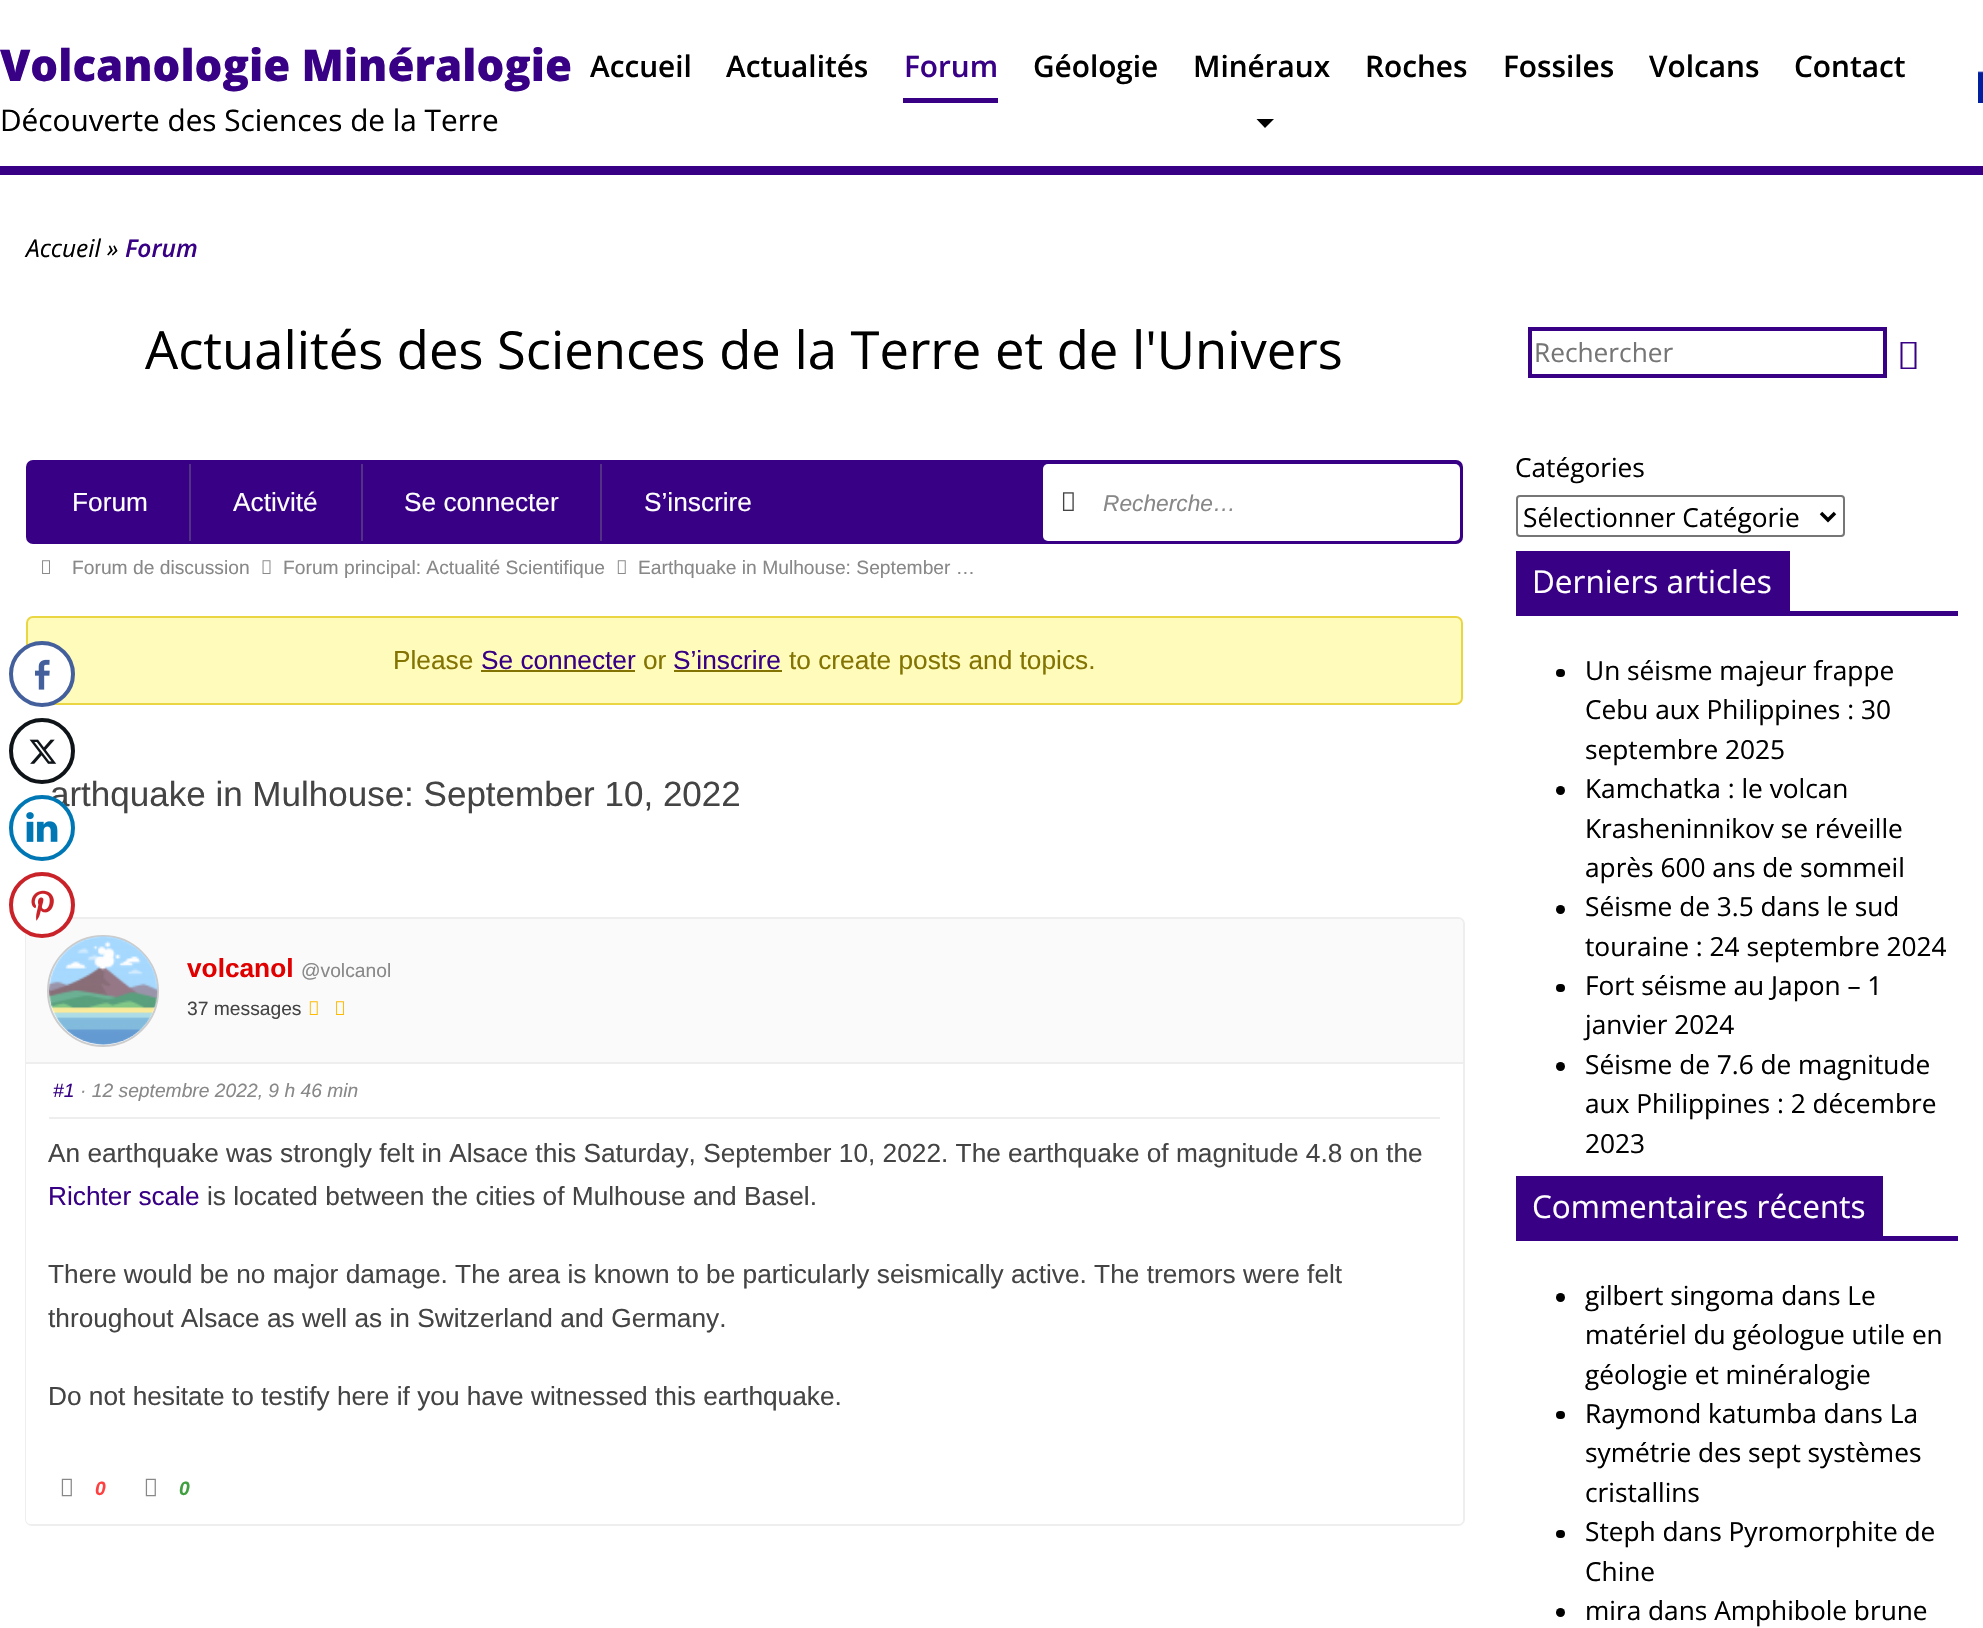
static SkFont makeFont(const char* family, int weight, float size, bool italic = false) {
  SkFontStyle style(weight, SkFontStyle::kNormal_Width,
    italic ? SkFontStyle::kItalic_Slant : SkFontStyle::kUpright_Slant);
  SkFont result(fontMgr->matchFamilyStyle(family, style), size);
  result.setSubpixel(true);
  return result;
}

static void text(SkCanvas* c, const char* s, float x, float y, const SkFont& font, SkColor color) {
  SkPaint ink(SkColor4f::FromColor(color));
  ink.setAntiAlias(true);
  c->drawString(s, x, y, font, ink);
}

static void box(SkCanvas* c, float l, float t, float r, float b, SkColor color) {
  SkPaint ink(SkColor4f::FromColor(color));
  ink.setAntiAlias(true);
  c->drawRect(SkRect::MakeLTRB(l, t, r, b), ink);
}

static void roundBox(SkCanvas* c, float l, float t, float r, float b, float radius, SkColor color) {
  SkPaint ink(SkColor4f::FromColor(color));
  ink.setAntiAlias(true);
  c->drawRoundRect(SkRect::MakeLTRB(l, t, r, b), radius, radius, ink);
}

static void picture(SkCanvas* c, const char* path, float l, float t, float r, float b) {
  auto image = SkImages::DeferredFromEncodedData(SkData::MakeFromFileName(path));
  c->drawImageRect(image, SkRect::MakeLTRB(l, t, r, b), SkSamplingOptions());
}

void draw(SkCanvas* c) {
  SkPaint paint;
  paint.setAntiAlias(true);
  c->clear(0xffffffff);
  box(c, 0, 166, 1983, 175, 0xff370085);
  SkFont face1 = makeFont("Open Sans", 800, 43.75f);
  text(c, "Volcanologie Minéralogie", 0, 81, face1, 0xff370085);
  SkFont face2 = makeFont("Open Sans", 400, 29.75f);
  text(c, "Découverte des Sciences de la Terre", 0, 131, face2, 0xff000000);
  SkFont face3 = makeFont("Open Sans", 600, 29.75f);
  text(c, "Accueil", 590, 77, face3, 0xff000000);
  text(c, "Actualités", 726, 77, face3, 0xff000000);
  text(c, "Forum", 904, 77, face3, 0xff370085);
  box(c, 903, 98, 998, 103, 0xff370085);
  text(c, "Géologie", 1033, 77, face3, 0xff000000);
  text(c, "Minéraux", 1193, 77, face3, 0xff000000);
  paint.setColor(0xff000000);
  c->drawPath(SkPathBuilder().moveTo(1256.5f, 119).lineTo(1274, 119).lineTo(1265, 128).close().detach(), paint);
  text(c, "Roches", 1365, 77, face3, 0xff000000);
  text(c, "Fossiles", 1503, 77, face3, 0xff000000);
  text(c, "Volcans", 1649, 77, face3, 0xff000000);
  text(c, "Contact", 1794, 77, face3, 0xff000000);
  picture(c, "img_01.png", 1978, 71, 1983, 103);
  SkFont face4 = makeFont("Open Sans", 400, 24.5f, true);
  text(c, "Accueil »", 26, 257, face4, 0xff000000);
  SkFont face5 = makeFont("Open Sans", 600, 24.5f, true);
  text(c, "Forum", 125, 257, face5, 0xff370085);
  SkFont face6 = makeFont("Open Sans", 400, 52.5f);
  text(c, "Actualités des Sciences de la Terre et de l'Univers", 145, 369, face6, 0xff000000);
  roundBox(c, 26, 460, 1463, 544, 7, 0xff370085);
  SkFont face7 = makeFont("Liberation Sans", 400, 26.25f);
  text(c, "Forum", 72, 511, face7, 0xffffffff);
  box(c, 189, 464, 191, 541, 0xff533184);
  text(c, "Activité", 233, 511, face7, 0xffffffff);
  box(c, 361, 464, 363, 541, 0xff533184);
  text(c, "Se connecter", 404, 511, face7, 0xffffffff);
  box(c, 600, 464, 602, 541, 0xff533184);
  text(c, "S’inscrire", 644, 511, face7, 0xffffffff);
  roundBox(c, 1043, 464, 1460, 541, 5, 0xffffffff);
  picture(c, "img_02.png", 1062, 492, 1074, 511);
  SkFont face8 = makeFont("Liberation Sans", 400, 22.75f, true);
  text(c, "Recherche…", 1103, 511, face8, 0xff888888);
  picture(c, "img_03.png", 42, 560, 50, 574);
  SkFont face9 = makeFont("Liberation Sans", 400, 19.25f);
  text(c, "Forum de discussion", 72, 574, face9, 0xff888888);
  picture(c, "img_04.png", 262, 560, 271, 574);
  text(c, "Forum principal: Actualité Scientifique", 283, 574, face9, 0xff888888);
  picture(c, "img_05.png", 617, 560, 626, 574);
  text(c, "Earthquake in Mulhouse: September …", 638, 574, face9, 0xff888888);
  paint.setColor(0xfffffbbb);
  c->drawRoundRect(SkRect::MakeLTRB(27, 617, 1462, 704), 6, 6, paint);
  paint.setStyle(SkPaint::kStroke_Style);
  paint.setStrokeWidth(2);
  paint.setColor(0xffead643);
  c->drawRoundRect(SkRect::MakeLTRB(27, 617, 1462, 704), 6, 6, paint);
  text(c, "Please", 393, 669, face7, 0xff827302);
  text(c, "Se connecter", 481, 669, face7, 0xff370085);
  box(c, 481, 670, 635, 672, 0xff827302);
  text(c, "or", 643, 669, face7, 0xff827302);
  text(c, "S’inscrire", 673, 669, face7, 0xff370085);
  box(c, 674, 670, 782, 672, 0xff827302);
  text(c, "to create posts and topics.", 789, 669, face7, 0xff827302);
  SkFont face10 = makeFont("Liberation Sans", 400, 35);
  text(c, "arthquake in Mulhouse: September 10, 2022", 50, 806, face10, 0xff444444);
  paint.setColor(0xffeeeeee);
  c->drawRoundRect(SkRect::MakeLTRB(26, 918, 1464, 1525), 6, 6, paint);
  paint.setStyle(SkPaint::kFill_Style);
  paint.setColor(0xfffafafa);
  c->drawPath(SkPathBuilder().moveTo(30, 919).lineTo(1459, 919).cubicTo(1461, 919, 1463, 921, 1463, 923).lineTo(1463, 1064).lineTo(26, 1064).lineTo(26, 923).cubicTo(26, 921, 28, 919, 30, 919).close().detach(), paint);
  box(c, 26, 1062, 1463, 1064, 0xffeeeeee);
  paint.setColor(0xffffffff);
  c->drawCircle(103, 991, 55, paint);
  paint.setStyle(SkPaint::kStroke_Style);
  paint.setColor(0xffcccccc);
  c->drawCircle(103, 991, 55, paint);
  picture(c, "img_06.png", 49, 936, 158, 1045);
  SkFont face11 = makeFont("Liberation Sans", 700, 26.25f);
  text(c, "volcanol", 187, 977, face11, 0xffe00000);
  text(c, "@volcanol", 301, 977, face9, 0xff888888);
  text(c, "37 messages", 187, 1015, face9, 0xff444444);
  picture(c, "img_07.png", 309, 1001, 318, 1015);
  picture(c, "img_08.png", 336, 1001, 344, 1015);
  paint.setStyle(SkPaint::kFill_Style);
  paint.setColor(0xffffffff);
  c->drawPath(SkPathBuilder().moveTo(26, 1064).lineTo(1463, 1064).lineTo(1463, 1520).cubicTo(1463, 1522, 1461, 1524, 1459, 1524).lineTo(30, 1524).cubicTo(28, 1524, 26, 1522, 26, 1520).close().detach(), paint);
  box(c, 49, 1117, 1440, 1119, 0xffeeeeee);
  SkFont face12 = makeFont("Liberation Sans", 400, 19.25f, true);
  text(c, "#1", 53, 1097, face12, 0xff370085);
  text(c, "· 12 septembre 2022, 9 h 46 min", 80, 1097, face12, 0xff888888);
  text(c, "An earthquake was strongly felt in Alsace this Saturday, September 10, 2022. The earthquake of magnitude 4.8 on the", 48, 1162, face7, 0xff444444);
  text(c, "Richter scale", 48, 1205, face7, 0xff370085);
  text(c, "is located between the cities of Mulhouse and Basel.", 207, 1205, face7, 0xff444444);
  text(c, "There would be no major damage. The area is known to be particularly seismically active. The tremors were felt", 48, 1283, face7, 0xff444444);
  text(c, "throughout Alsace as well as in Switzerland and Germany.", 48, 1327, face7, 0xff444444);
  text(c, "Do not hesitate to testify here if you have witnessed this earthquake.", 48, 1405, face7, 0xff444444);
  picture(c, "img_09.png", 61, 1478, 72, 1497);
  SkFont face13 = makeFont("Liberation Sans", 700, 19.25f, true);
  text(c, "0", 95, 1495, face13, 0xffff4040);
  picture(c, "img_09.png", 145, 1478, 156, 1497);
  text(c, "0", 179, 1495, face13, 0xff40a040);
  paint.setStyle(SkPaint::kStroke_Style);
  paint.setStrokeWidth(4);
  paint.setColor(0xff370085);
  c->drawRect(SkRect::MakeLTRB(1530, 329, 1885, 376), paint);
  SkFont face14 = makeFont("Open Sans", 400, 26.25f);
  text(c, "Rechercher", 1534, 362, face14, 0xff757575);
  paint.setStyle(SkPaint::kFill_Style);
  c->drawPath(SkPathBuilder().moveTo(1900.5f, 369).lineTo(1900.5f, 342).lineTo(1916.5f, 342).lineTo(1916.5f, 369).close().moveTo(1902.5f, 367.5f).lineTo(1914.5f, 367.5f).lineTo(1914.5f, 343.5f).lineTo(1902.5f, 343.5f).close().detach(), paint);
  text(c, "Catégories", 1515, 477, face14, 0xff000000);
  paint.setStyle(SkPaint::kStroke_Style);
  paint.setStrokeWidth(2);
  paint.setColor(0xff767676);
  c->drawRoundRect(SkRect::MakeLTRB(1517, 496, 1844, 536), 3, 3, paint);
  paint.setStrokeWidth(3.5f);
  paint.setColor(0xff000000);
  c->drawPath(SkPathBuilder().moveTo(1821, 513).lineTo(1828, 520).lineTo(1835, 513).detach(), paint);
  text(c, "Sélectionner Catégorie", 1523, 527, face14, 0xff000000);
  box(c, 1516, 611, 1958, 616, 0xff370085);
  box(c, 1516, 551, 1790, 611, 0xff370085);
  SkFont face15 = makeFont("Open Sans", 400, 31.5f);
  text(c, "Derniers articles", 1532, 593, face15, 0xffffffff);
  roundBox(c, 1556, 669, 1565, 677, 4, 0xff000000);
  text(c, "Un séisme majeur frappe", 1585, 680, face14, 0xff000000);
  text(c, "Cebu aux Philippines : 30", 1585, 719, face14, 0xff000000);
  text(c, "septembre 2025", 1585, 759, face14, 0xff000000);
  paint.setStyle(SkPaint::kFill_Style);
  c->drawCircle(1560.5f, 790.5f, 4.5f, paint);
  text(c, "Kamchatka : le volcan", 1585, 798, face14, 0xff000000);
  text(c, "Krasheninnikov se réveille", 1585, 838, face14, 0xff000000);
  text(c, "après 600 ans de sommeil", 1585, 877, face14, 0xff000000);
  c->drawCircle(1560.5f, 909.5f, 4.5f, paint);
  text(c, "Séisme de 3.5 dans le sud", 1585, 916, face14, 0xff000000);
  text(c, "touraine : 24 septembre 2024", 1585, 956, face14, 0xff000000);
  roundBox(c, 1556, 984, 1565, 992, 4, 0xff000000);
  text(c, "Fort séisme au Japon – 1", 1585, 995, face14, 0xff000000);
  text(c, "janvier 2024", 1585, 1034, face14, 0xff000000);
  c->drawCircle(1560.5f, 1066.5f, 4.5f, paint);
  text(c, "Séisme de 7.6 de magnitude", 1585, 1074, face14, 0xff000000);
  text(c, "aux Philippines : 2 décembre", 1585, 1113, face14, 0xff000000);
  text(c, "2023", 1585, 1153, face14, 0xff000000);
  box(c, 1516, 1236, 1958, 1241, 0xff370085);
  box(c, 1516, 1176, 1883, 1236, 0xff370085);
  text(c, "Commentaires récents", 1532, 1218, face15, 0xffffffff);
  c->drawCircle(1560.5f, 1297.5f, 4.5f, paint);
  text(c, "gilbert singoma dans Le", 1585, 1305, face14, 0xff000000);
  text(c, "matériel du géologue utile en", 1585, 1344, face14, 0xff000000);
  text(c, "géologie et minéralogie", 1585, 1384, face14, 0xff000000);
  roundBox(c, 1556, 1411, 1565, 1419, 4, 0xff000000);
  text(c, "Raymond katumba dans La", 1585, 1423, face14, 0xff000000);
  text(c, "symétrie des sept systèmes", 1585, 1462, face14, 0xff000000);
  text(c, "cristallins", 1585, 1502, face14, 0xff000000);
  roundBox(c, 1556, 1530, 1565, 1538, 4, 0xff000000);
  text(c, "Steph dans Pyromorphite de", 1585, 1541, face14, 0xff000000);
  text(c, "Chine", 1585, 1581, face14, 0xff000000);
  c->drawCircle(1560.5f, 1612.5f, 4.5f, paint);
  text(c, "mira dans Amphibole brune", 1585, 1620, face14, 0xff000000);
  paint.setColor(0xffffffff);
  c->drawCircle(42, 674, 31, paint);
  paint.setStyle(SkPaint::kStroke_Style);
  paint.setStrokeWidth(4);
  paint.setColor(0xff43609c);
  c->drawCircle(42, 674, 31, paint);
  picture(c, "img_10.png", 35, 659, 50, 690);
  paint.setColor(0xff0f1419);
  c->drawCircle(42, 751, 31, paint);
  picture(c, "img_11.png", 29, 739, 57, 764);
  paint.setStyle(SkPaint::kFill_Style);
  paint.setColor(0xffffffff);
  c->drawCircle(42, 828, 31, paint);
  paint.setStyle(SkPaint::kStroke_Style);
  paint.setColor(0xff0077b5);
  c->drawCircle(42, 828, 31, paint);
  picture(c, "img_12.png", 26, 812, 58, 842);
  paint.setStyle(SkPaint::kFill_Style);
  paint.setColor(0xffffffff);
  c->drawCircle(42, 905, 31, paint);
  paint.setStyle(SkPaint::kStroke_Style);
  paint.setColor(0xffc92228);
  c->drawCircle(42, 905, 31, paint);
  picture(c, "img_13.png", 31, 890, 54, 921);
}
